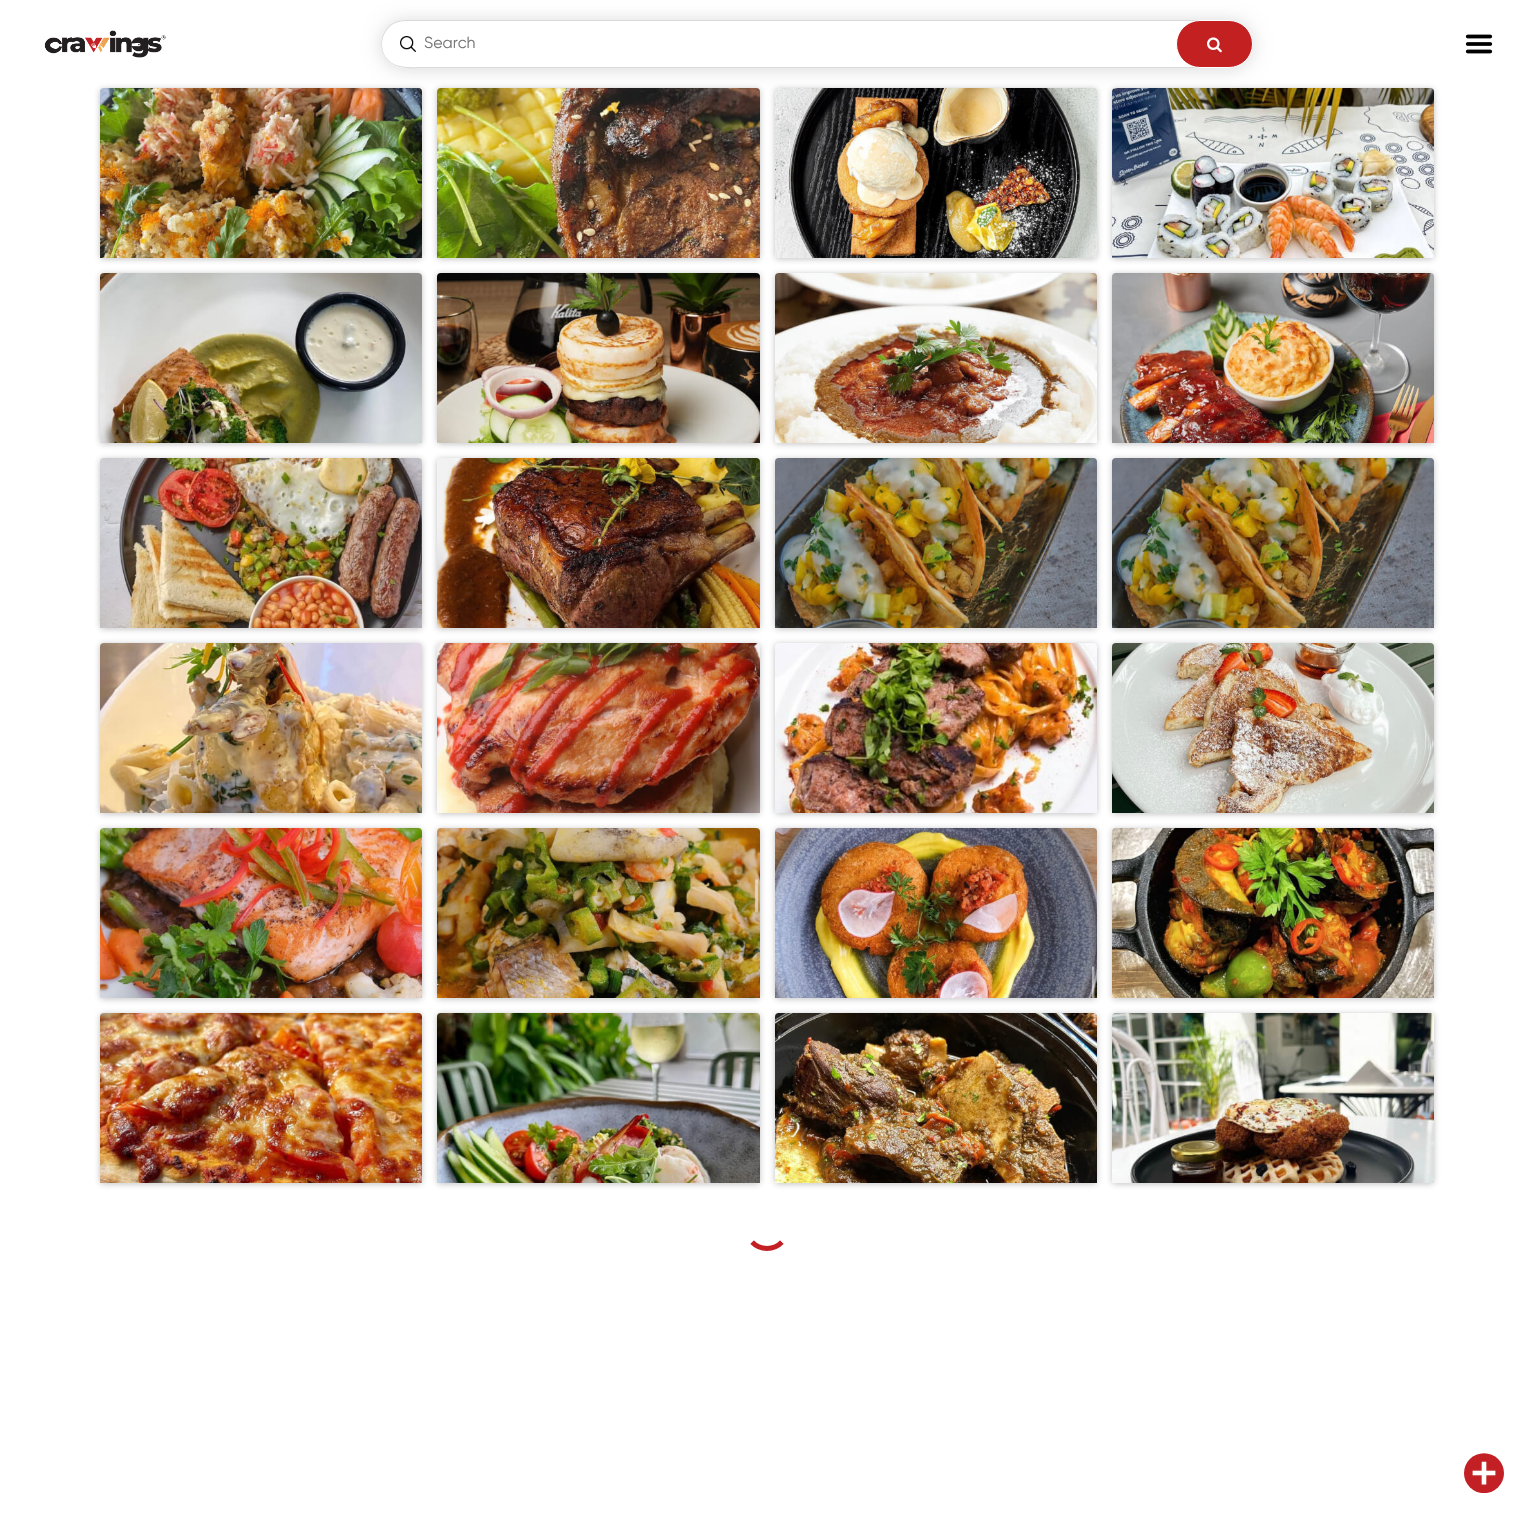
static SkFont makeFont(const char* family, int weight, float size, bool italic = false) {
  SkFontStyle style(weight, SkFontStyle::kNormal_Width,
    italic ? SkFontStyle::kItalic_Slant : SkFontStyle::kUpright_Slant);
  SkFont result(fontMgr->matchFamilyStyle(family, style), size);
  result.setSubpixel(true);
  return result;
}

static void text(SkCanvas* c, const char* s, float x, float y, const SkFont& font, SkColor color) {
  SkPaint ink(SkColor4f::FromColor(color));
  ink.setAntiAlias(true);
  c->drawString(s, x, y, font, ink);
}

static void picture(SkCanvas* c, const char* path, float l, float t, float r, float b) {
  auto image = SkImages::DeferredFromEncodedData(SkData::MakeFromFileName(path));
  c->drawImageRect(image, SkRect::MakeLTRB(l, t, r, b), SkSamplingOptions());
}

void draw(SkCanvas* c) {
  SkPaint paint;
  paint.setAntiAlias(true);
  c->clear(0xffffffff);
  picture(c, "img_01.png", 44, 30, 166, 58);
  paint.setColor(0x47202124);
  paint.setMaskFilter(SkMaskFilter::MakeBlur(kNormal_SkBlurStyle, 3));
  c->drawRoundRect(SkRect::MakeLTRB(100, 89, 422, 259), 4, 4, paint);
  paint.setMaskFilter(nullptr);
  picture(c, "img_05.png", 100, 88, 422, 258);
  paint.setMaskFilter(SkMaskFilter::MakeBlur(kNormal_SkBlurStyle, 3));
  c->drawRoundRect(SkRect::MakeLTRB(437, 89, 760, 259), 4, 4, paint);
  paint.setMaskFilter(nullptr);
  picture(c, "img_06.png", 437, 88, 760, 258);
  paint.setMaskFilter(SkMaskFilter::MakeBlur(kNormal_SkBlurStyle, 3));
  c->drawRoundRect(SkRect::MakeLTRB(775, 89, 1097, 259), 4, 4, paint);
  paint.setMaskFilter(nullptr);
  picture(c, "img_07.png", 775, 88, 1097, 258);
  paint.setMaskFilter(SkMaskFilter::MakeBlur(kNormal_SkBlurStyle, 3));
  c->drawRoundRect(SkRect::MakeLTRB(1112, 89, 1434, 259), 4, 4, paint);
  paint.setMaskFilter(nullptr);
  picture(c, "img_08.png", 1112, 88, 1434, 258);
  paint.setColor(0x26000000);
  paint.setMaskFilter(SkMaskFilter::MakeBlur(kNormal_SkBlurStyle, 9));
  c->drawRoundRect(SkRect::MakeLTRB(381, 21, 1253, 69), 24, 24, paint);
  paint.setMaskFilter(nullptr);
  paint.setColor(0xffffffff);
  c->drawPath(SkPathBuilder().moveTo(405, 20).lineTo(424, 20).lineTo(424, 68).lineTo(405, 68).cubicTo(391.5f, 68, 381, 57.5f, 381, 44).cubicTo(381, 30.5f, 391.5f, 20, 405, 20).close().detach(), paint);
  paint.setColor(0x26000000);
  c->drawPath(SkPathBuilder(SkPathFillType::kEvenOdd).moveTo(405, 20).lineTo(424, 20).lineTo(424, 68).cubicTo(415, 68, 404, 69, 396, 66).cubicTo(372, 56, 379, 20, 405, 20).close().moveTo(405, 21).lineTo(424, 21).lineTo(424, 67).cubicTo(416, 67, 404, 68, 396, 65).cubicTo(373, 56, 380, 21, 405, 21).close().detach(), paint);
  picture(c, "img_02.png", 400, 36, 416, 52);
  paint.setColor(0xffffffff);
  c->drawPath(SkPathBuilder().moveTo(424, 20).lineTo(1229, 20).cubicTo(1242.5f, 20, 1253, 30.5f, 1253, 44).cubicTo(1253, 57.5f, 1242.5f, 68, 1229, 68).lineTo(424, 68).close().detach(), paint);
  paint.setColor(0x26000000);
  c->drawPath(SkPathBuilder(SkPathFillType::kEvenOdd).moveTo(424, 20).lineTo(1229, 20).cubicTo(1242, 20, 1253, 31, 1253, 44).cubicTo(1253, 57, 1242, 68, 1229, 68).lineTo(424, 68).close().moveTo(424, 21).lineTo(1229, 21).cubicTo(1242, 21, 1252, 31, 1252, 44).cubicTo(1252, 57, 1242, 67, 1229, 67).lineTo(424, 67).close().detach(), paint);
  SkFont face1 = makeFont("Gilroy", 400, 16);
  text(c, "Search", 424, 48, face1, 0xff757575);
  paint.setColor(0xffc32022);
  c->drawRoundRect(SkRect::MakeLTRB(1176.5f, 20.5f, 1252.5f, 67.5f), 23.5f, 23.5f, paint);
  paint.setStyle(SkPaint::kStroke_Style);
  paint.setStrokeWidth(1);
  paint.setColor(0xffffffff);
  c->drawRoundRect(SkRect::MakeLTRB(1176.5f, 20.5f, 1252.5f, 67.5f), 23.5f, 23.5f, paint);
  picture(c, "img_03.png", 1207, 37, 1222, 53);
  picture(c, "img_04.png", 1465, 34, 1493, 54);
  paint.setStyle(SkPaint::kFill_Style);
  paint.setColor(0x47202124);
  paint.setMaskFilter(SkMaskFilter::MakeBlur(kNormal_SkBlurStyle, 3));
  c->drawRoundRect(SkRect::MakeLTRB(100, 274, 422, 444), 4, 4, paint);
  paint.setMaskFilter(nullptr);
  picture(c, "img_09.png", 100, 273, 422, 443);
  paint.setMaskFilter(SkMaskFilter::MakeBlur(kNormal_SkBlurStyle, 3));
  c->drawRoundRect(SkRect::MakeLTRB(437, 274, 760, 444), 4, 4, paint);
  paint.setMaskFilter(nullptr);
  picture(c, "img_10.png", 437, 273, 760, 443);
  paint.setMaskFilter(SkMaskFilter::MakeBlur(kNormal_SkBlurStyle, 3));
  c->drawRoundRect(SkRect::MakeLTRB(775, 274, 1097, 444), 4, 4, paint);
  paint.setMaskFilter(nullptr);
  picture(c, "img_11.png", 775, 273, 1097, 443);
  paint.setMaskFilter(SkMaskFilter::MakeBlur(kNormal_SkBlurStyle, 3));
  c->drawRoundRect(SkRect::MakeLTRB(1112, 274, 1434, 444), 4, 4, paint);
  paint.setMaskFilter(nullptr);
  picture(c, "img_12.png", 1112, 273, 1434, 443);
  paint.setMaskFilter(SkMaskFilter::MakeBlur(kNormal_SkBlurStyle, 3));
  c->drawRoundRect(SkRect::MakeLTRB(100, 459, 422, 629), 4, 4, paint);
  paint.setMaskFilter(nullptr);
  picture(c, "img_13.png", 100, 458, 422, 628);
  paint.setMaskFilter(SkMaskFilter::MakeBlur(kNormal_SkBlurStyle, 3));
  c->drawRoundRect(SkRect::MakeLTRB(437, 459, 760, 629), 4, 4, paint);
  paint.setMaskFilter(nullptr);
  picture(c, "img_14.png", 437, 458, 760, 628);
  paint.setMaskFilter(SkMaskFilter::MakeBlur(kNormal_SkBlurStyle, 3));
  c->drawRoundRect(SkRect::MakeLTRB(775, 459, 1097, 629), 4, 4, paint);
  paint.setMaskFilter(nullptr);
  picture(c, "img_15.png", 775, 458, 1097, 628);
  paint.setMaskFilter(SkMaskFilter::MakeBlur(kNormal_SkBlurStyle, 3));
  c->drawRoundRect(SkRect::MakeLTRB(1112, 459, 1434, 629), 4, 4, paint);
  paint.setMaskFilter(nullptr);
  picture(c, "img_15.png", 1112, 458, 1434, 628);
  paint.setMaskFilter(SkMaskFilter::MakeBlur(kNormal_SkBlurStyle, 3));
  c->drawRoundRect(SkRect::MakeLTRB(100, 644, 422, 814), 4, 4, paint);
  paint.setMaskFilter(nullptr);
  picture(c, "img_16.png", 100, 643, 422, 813);
  paint.setMaskFilter(SkMaskFilter::MakeBlur(kNormal_SkBlurStyle, 3));
  c->drawRoundRect(SkRect::MakeLTRB(437, 644, 760, 814), 4, 4, paint);
  paint.setMaskFilter(nullptr);
  picture(c, "img_17.png", 437, 643, 760, 813);
  paint.setMaskFilter(SkMaskFilter::MakeBlur(kNormal_SkBlurStyle, 3));
  c->drawRoundRect(SkRect::MakeLTRB(775, 644, 1097, 814), 4, 4, paint);
  paint.setMaskFilter(nullptr);
  picture(c, "img_18.png", 775, 643, 1097, 813);
  paint.setMaskFilter(SkMaskFilter::MakeBlur(kNormal_SkBlurStyle, 3));
  c->drawRoundRect(SkRect::MakeLTRB(1112, 644, 1434, 814), 4, 4, paint);
  paint.setMaskFilter(nullptr);
  picture(c, "img_19.png", 1112, 643, 1434, 813);
  paint.setMaskFilter(SkMaskFilter::MakeBlur(kNormal_SkBlurStyle, 3));
  c->drawRoundRect(SkRect::MakeLTRB(100, 829, 422, 999), 4, 4, paint);
  paint.setMaskFilter(nullptr);
  picture(c, "img_20.png", 100, 828, 422, 998);
  paint.setMaskFilter(SkMaskFilter::MakeBlur(kNormal_SkBlurStyle, 3));
  c->drawRoundRect(SkRect::MakeLTRB(437, 829, 760, 999), 4, 4, paint);
  paint.setMaskFilter(nullptr);
  picture(c, "img_21.png", 437, 828, 760, 998);
  paint.setMaskFilter(SkMaskFilter::MakeBlur(kNormal_SkBlurStyle, 3));
  c->drawRoundRect(SkRect::MakeLTRB(775, 829, 1097, 999), 4, 4, paint);
  paint.setMaskFilter(nullptr);
  picture(c, "img_22.png", 775, 828, 1097, 998);
  paint.setMaskFilter(SkMaskFilter::MakeBlur(kNormal_SkBlurStyle, 3));
  c->drawRoundRect(SkRect::MakeLTRB(1112, 829, 1434, 999), 4, 4, paint);
  paint.setMaskFilter(nullptr);
  picture(c, "img_23.png", 1112, 828, 1434, 998);
  paint.setMaskFilter(SkMaskFilter::MakeBlur(kNormal_SkBlurStyle, 3));
  c->drawRoundRect(SkRect::MakeLTRB(100, 1014, 422, 1184), 4, 4, paint);
  paint.setMaskFilter(nullptr);
  picture(c, "img_24.png", 100, 1013, 422, 1183);
  paint.setMaskFilter(SkMaskFilter::MakeBlur(kNormal_SkBlurStyle, 3));
  c->drawRoundRect(SkRect::MakeLTRB(437, 1014, 760, 1184), 4, 4, paint);
  paint.setMaskFilter(nullptr);
  picture(c, "img_25.png", 437, 1013, 760, 1183);
  paint.setMaskFilter(SkMaskFilter::MakeBlur(kNormal_SkBlurStyle, 3));
  c->drawRoundRect(SkRect::MakeLTRB(775, 1014, 1097, 1184), 4, 4, paint);
  paint.setMaskFilter(nullptr);
  picture(c, "img_26.png", 775, 1013, 1097, 1183);
  paint.setMaskFilter(SkMaskFilter::MakeBlur(kNormal_SkBlurStyle, 3));
  c->drawRoundRect(SkRect::MakeLTRB(1112, 1014, 1434, 1184), 4, 4, paint);
  paint.setMaskFilter(nullptr);
  picture(c, "img_27.png", 1112, 1013, 1434, 1183);
  paint.setStyle(SkPaint::kStroke_Style);
  paint.setStrokeWidth(5);
  paint.setColor(0xffc32026);
  c->drawPath(SkPathBuilder().moveTo(782, 1242).cubicTo(774, 1250.5f, 760, 1250.5f, 752, 1242).detach(), paint);
  paint.setColor(0xffffffff);
  c->drawPath(SkPathBuilder().moveTo(752, 1242).cubicTo(748, 1238, 745.5f, 1232.5f, 745.5f, 1227).cubicTo(745.5f, 1201.5f, 783, 1197.5f, 788, 1223).cubicTo(789.5f, 1230, 787, 1237, 782, 1242).detach(), paint);
  picture(c, "img_28.png", 1464, 1453, 1504, 1493);
}
